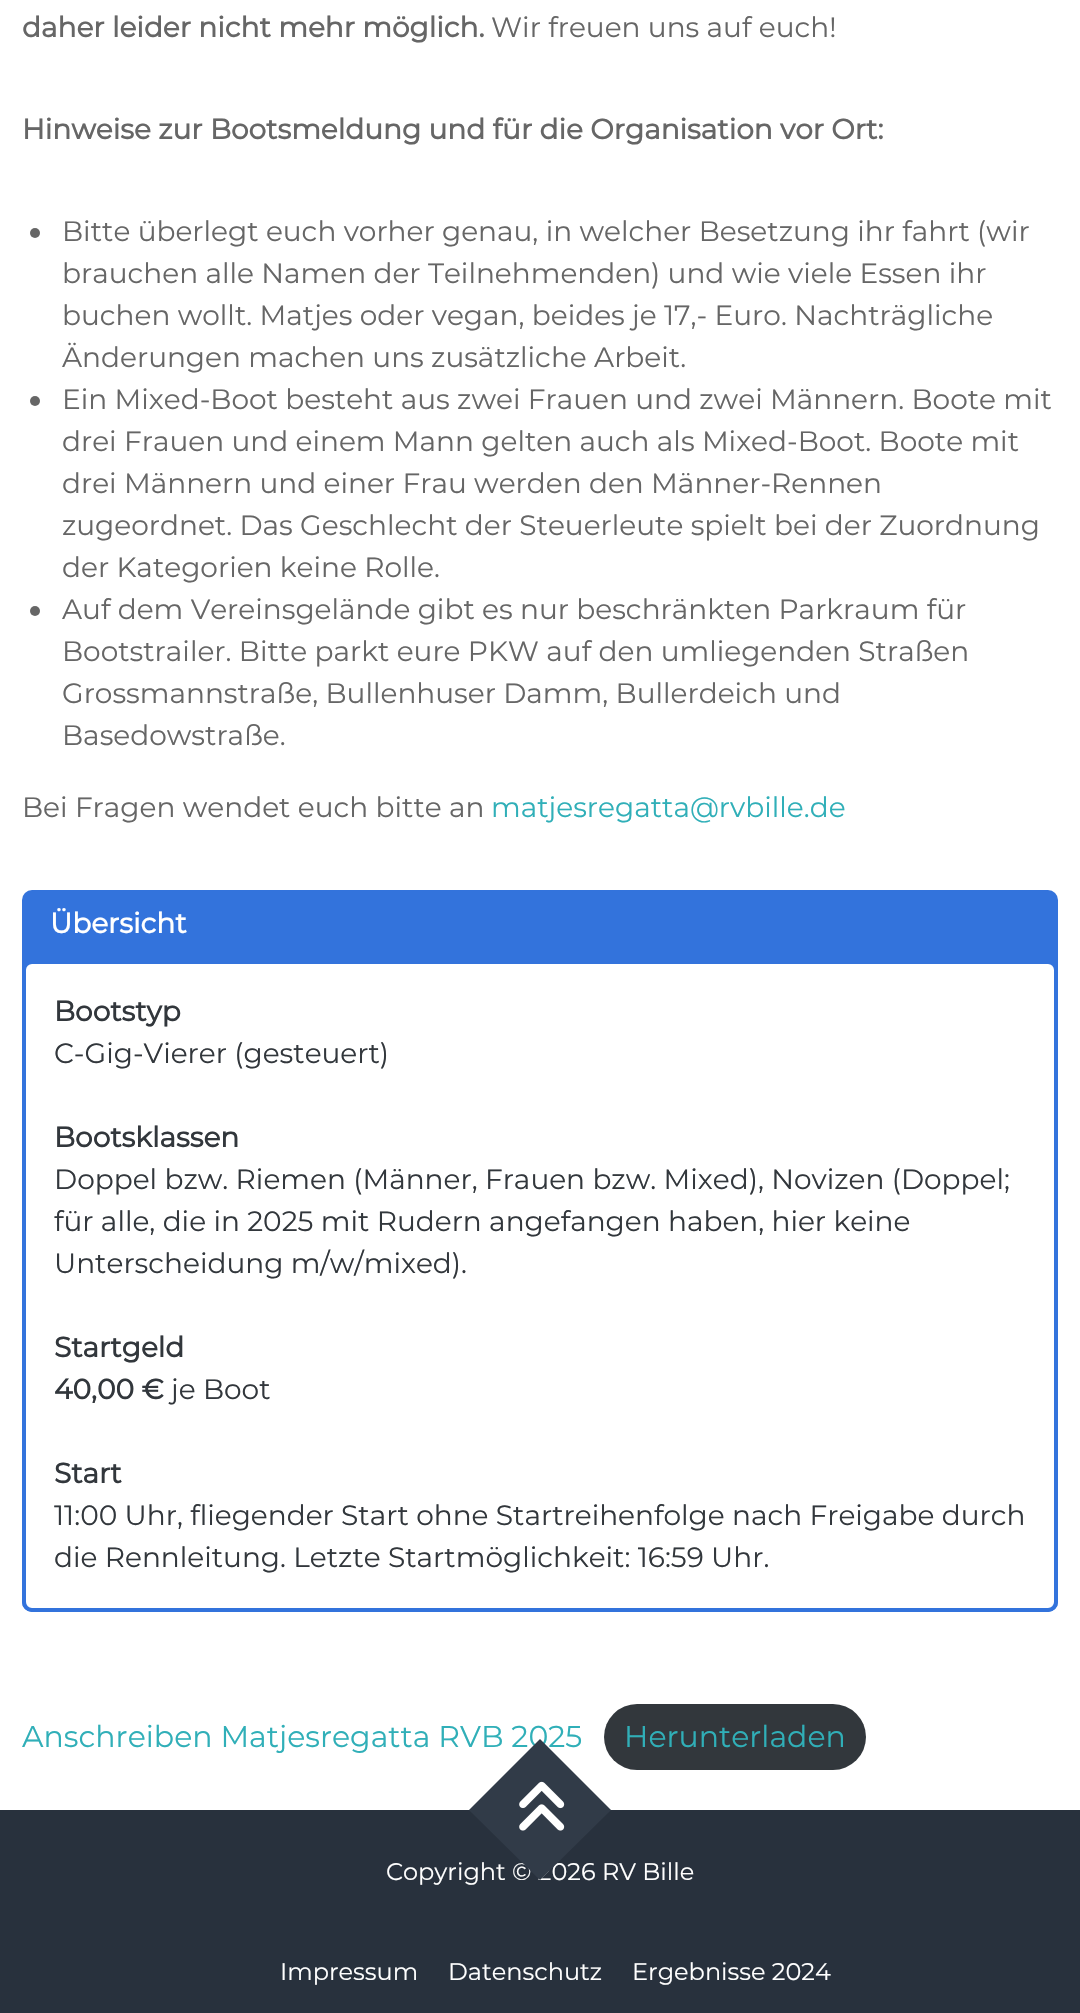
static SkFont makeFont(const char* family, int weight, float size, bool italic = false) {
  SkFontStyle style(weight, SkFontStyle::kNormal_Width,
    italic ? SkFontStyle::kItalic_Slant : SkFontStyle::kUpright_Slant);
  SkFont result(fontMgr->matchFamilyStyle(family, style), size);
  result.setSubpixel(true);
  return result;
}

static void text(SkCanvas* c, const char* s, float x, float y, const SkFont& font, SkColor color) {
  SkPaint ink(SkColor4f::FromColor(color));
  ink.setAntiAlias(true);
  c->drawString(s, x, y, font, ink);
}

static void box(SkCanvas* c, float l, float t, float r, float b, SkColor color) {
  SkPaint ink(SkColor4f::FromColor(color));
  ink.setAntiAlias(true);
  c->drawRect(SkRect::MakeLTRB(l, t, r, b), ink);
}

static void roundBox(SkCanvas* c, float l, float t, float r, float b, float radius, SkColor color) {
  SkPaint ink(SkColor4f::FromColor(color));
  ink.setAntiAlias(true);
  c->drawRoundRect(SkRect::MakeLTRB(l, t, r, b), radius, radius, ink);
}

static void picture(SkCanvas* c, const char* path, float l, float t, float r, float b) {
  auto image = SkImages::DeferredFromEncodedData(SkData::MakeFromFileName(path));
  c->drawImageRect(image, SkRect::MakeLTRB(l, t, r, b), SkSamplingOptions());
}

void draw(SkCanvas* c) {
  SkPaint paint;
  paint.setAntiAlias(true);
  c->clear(0xffffffff);
  SkFont face1 = makeFont("Montserrat", 700, 28);
  text(c, "daher leider nicht mehr möglich.", 22, 37, face1, 0xff666666);
  SkFont face2 = makeFont("Montserrat", 400, 28);
  text(c, "Wir freuen uns auf euch!", 491, 37, face2, 0xff666666);
  text(c, "Hinweise zur Bootsmeldung und für die Organisation vor Ort:", 22, 139, face1, 0xff666666);
  paint.setColor(0xff666666);
  c->drawCircle(35, 233, 5, paint);
  text(c, "Bitte überlegt euch vorher genau, in welcher Besetzung ihr fahrt (wir", 62, 241, face2, 0xff666666);
  text(c, "brauchen alle Namen der Teilnehmenden) und wie viele Essen ihr", 62, 283, face2, 0xff666666);
  text(c, "buchen wollt. Matjes oder vegan, beides je 17,- Euro. Nachträgliche", 62, 325, face2, 0xff666666);
  text(c, "Änderungen machen uns zusätzliche Arbeit.", 62, 367, face2, 0xff666666);
  c->drawCircle(35, 401, 5, paint);
  text(c, "Ein Mixed-Boot besteht aus zwei Frauen und zwei Männern. Boote mit", 62, 409, face2, 0xff666666);
  text(c, "drei Frauen und einem Mann gelten auch als Mixed-Boot. Boote mit", 62, 451, face2, 0xff666666);
  text(c, "drei Männern und einer Frau werden den Männer-Rennen", 62, 493, face2, 0xff666666);
  text(c, "zugeordnet. Das Geschlecht der Steuerleute spielt bei der Zuordnung", 62, 535, face2, 0xff666666);
  text(c, "der Kategorien keine Rolle.", 62, 577, face2, 0xff666666);
  c->drawCircle(35, 611, 5, paint);
  text(c, "Auf dem Vereinsgelände gibt es nur beschränkten Parkraum für", 62, 619, face2, 0xff666666);
  text(c, "Bootstrailer. Bitte parkt eure PKW auf den umliegenden Straßen", 62, 661, face2, 0xff666666);
  text(c, "Grossmannstraße, Bullenhuser Damm, Bullerdeich und", 62, 703, face2, 0xff666666);
  text(c, "Basedowstraße.", 62, 745, face2, 0xff666666);
  text(c, "Bei Fragen wendet euch bitte an", 22, 817, face2, 0xff666666);
  text(c, "matjesregatta@rvbille.de", 491, 817, face2, 0xff30afb8);
  roundBox(c, 22, 890, 1058, 1612, 10, 0xff3373dc);
  text(c, "Übersicht", 50, 933, face1, 0xffffffff);
  paint.setColor(0xffffffff);
  c->drawRoundRect(SkRect::MakeLTRB(24, 962, 1056, 1610), 8, 8, paint);
  paint.setStyle(SkPaint::kStroke_Style);
  paint.setStrokeWidth(4);
  paint.setColor(0xff3373dc);
  c->drawRoundRect(SkRect::MakeLTRB(24, 962, 1056, 1610), 8, 8, paint);
  text(c, "Bootstyp", 54, 1021, face1, 0xff32373c);
  text(c, "C-Gig-Vierer (gesteuert)", 54, 1063, face2, 0xff32373c);
  text(c, "Bootsklassen", 54, 1147, face1, 0xff32373c);
  text(c, "Doppel bzw. Riemen (Männer, Frauen bzw. Mixed), Novizen (Doppel;", 54, 1189, face2, 0xff32373c);
  text(c, "für alle, die in 2025 mit Rudern angefangen haben, hier keine", 54, 1231, face2, 0xff32373c);
  text(c, "Unterscheidung m/w/mixed).", 54, 1273, face2, 0xff32373c);
  text(c, "Startgeld", 54, 1357, face1, 0xff32373c);
  text(c, "40,00 €", 54, 1399, face1, 0xff32373c);
  text(c, "je Boot", 171, 1399, face2, 0xff32373c);
  text(c, "Start", 54, 1483, face1, 0xff32373c);
  text(c, "11:00 Uhr, fliegender Start ohne Startreihenfolge nach Freigabe durch", 54, 1525, face2, 0xff32373c);
  text(c, "die Rennleitung. Letzte Startmöglichkeit: 16:59 Uhr.", 54, 1567, face2, 0xff32373c);
  SkFont face3 = makeFont("Montserrat", 400, 30);
  text(c, "Anschreiben Matjesregatta RVB 2025", 22, 1747, face3, 0xff30afb8);
  roundBox(c, 604, 1704, 866, 1770, 33, 0xff32373c);
  text(c, "Herunterladen", 624, 1747, face3, 0xff30afb8);
  box(c, 0, 1810, 1080, 2013, 0xff28313d);
  SkFont face4 = makeFont("Montserrat", 400, 24);
  text(c, "Copyright © 2026 RV Bille", 386, 1880, face4, 0xffffffff);
  paint.setStyle(SkPaint::kFill_Style);
  paint.setColor(0xff313b48);
  c->drawPath(SkPathBuilder().moveTo(540, 1739).lineTo(611, 1810).lineTo(540, 1880).lineTo(469, 1810).close().detach(), paint);
  picture(c, "img_01.png", 519, 1781, 565, 1831);
  text(c, "Impressum", 280, 1980, face4, 0xffffffff);
  text(c, "Datenschutz", 448, 1980, face4, 0xffffffff);
  text(c, "Ergebnisse 2024", 632, 1980, face4, 0xffffffff);
}
